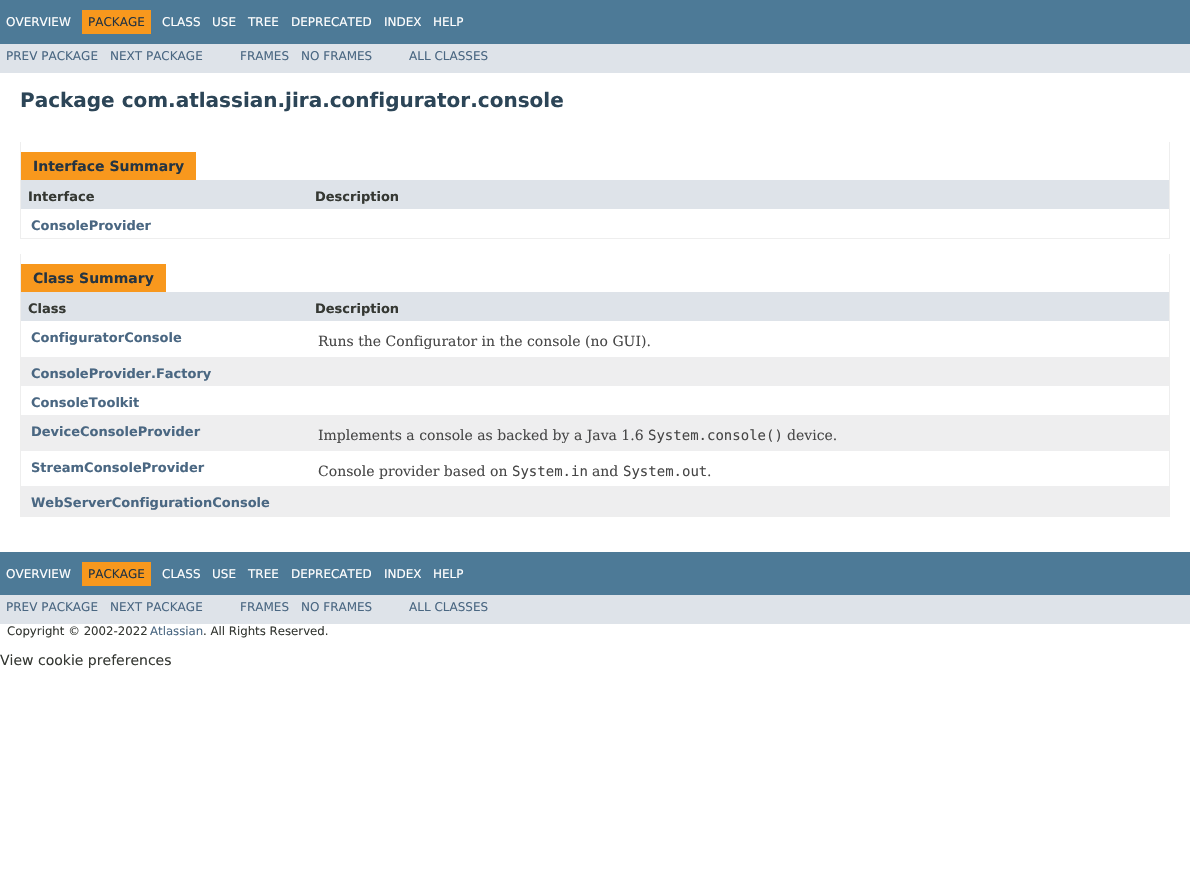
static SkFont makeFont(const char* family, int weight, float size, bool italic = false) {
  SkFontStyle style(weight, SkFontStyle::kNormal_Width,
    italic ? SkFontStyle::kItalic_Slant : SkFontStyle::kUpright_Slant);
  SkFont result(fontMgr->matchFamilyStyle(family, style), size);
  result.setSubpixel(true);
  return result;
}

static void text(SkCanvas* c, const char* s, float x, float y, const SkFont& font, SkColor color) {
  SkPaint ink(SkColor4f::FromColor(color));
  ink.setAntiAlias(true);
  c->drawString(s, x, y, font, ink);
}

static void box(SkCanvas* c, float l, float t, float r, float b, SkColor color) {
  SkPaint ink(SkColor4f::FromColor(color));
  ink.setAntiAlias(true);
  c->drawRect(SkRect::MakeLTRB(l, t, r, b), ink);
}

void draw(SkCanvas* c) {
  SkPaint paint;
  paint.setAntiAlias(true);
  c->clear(0xffffffff);
  box(c, 0, 0, 1190, 44, 0xff4d7a97);
  SkFont face1 = makeFont("DejaVu Sans", 400, 12);
  text(c, "OVERVIEW", 6, 26, face1, 0xffffffff);
  box(c, 82, 10, 151, 34, 0xfff8981d);
  text(c, "PACKAGE", 88, 26, face1, 0xff253441);
  text(c, "CLASS", 162, 26, face1, 0xffffffff);
  text(c, "USE", 212, 26, face1, 0xffffffff);
  text(c, "TREE", 248, 26, face1, 0xffffffff);
  text(c, "DEPRECATED", 291, 26, face1, 0xffffffff);
  text(c, "INDEX", 384, 26, face1, 0xffffffff);
  text(c, "HELP", 433, 26, face1, 0xffffffff);
  box(c, 0, 44, 1190, 73, 0xffdee3e9);
  text(c, "PREV PACKAGE", 6, 60, face1, 0xff4a6782);
  text(c, "NEXT PACKAGE", 110, 60, face1, 0xff4a6782);
  text(c, "FRAMES", 240, 60, face1, 0xff4a6782);
  text(c, "NO FRAMES", 301, 60, face1, 0xff4a6782);
  text(c, "ALL CLASSES", 409, 60, face1, 0xff4a6782);
  SkFont face2 = makeFont("DejaVu Sans", 700, 20);
  text(c, "Package com.atlassian.jira.configurator.console", 20, 107, face2, 0xff2c4557);
  box(c, 1169, 142, 1170, 239, 0xffeeeeee);
  box(c, 20, 238, 1170, 239, 0xffeeeeee);
  box(c, 20, 142, 21, 239, 0xffeeeeee);
  box(c, 21, 152, 196, 180, 0xfff8981d);
  SkFont face3 = makeFont("DejaVu Sans", 700, 14);
  text(c, "Interface Summary", 33, 171, face3, 0xff253441);
  box(c, 21, 180, 1169, 209, 0xffdee3e9);
  SkFont face4 = makeFont("DejaVu Sans", 700, 13);
  text(c, "Interface", 28, 201, face4, 0xff353833);
  text(c, "Description", 315, 201, face4, 0xff353833);
  text(c, "ConsoleProvider", 31, 230, face4, 0xff4a6782);
  box(c, 1169, 254, 1170, 517, 0xffeeeeee);
  box(c, 20, 516, 1170, 517, 0xffeeeeee);
  box(c, 20, 254, 21, 517, 0xffeeeeee);
  box(c, 21, 264, 166, 292, 0xfff8981d);
  text(c, "Class Summary", 33, 283, face3, 0xff253441);
  box(c, 21, 292, 1169, 321, 0xffdee3e9);
  text(c, "Class", 28, 313, face4, 0xff353833);
  text(c, "Description", 315, 313, face4, 0xff353833);
  text(c, "ConfiguratorConsole", 31, 342, face4, 0xff4a6782);
  SkFont face5 = makeFont("DejaVu Serif", 400, 14);
  text(c, "Runs the Configurator in the console (no GUI).", 318, 346, face5, 0xff474747);
  box(c, 21, 357, 1169, 386, 0xffeeeeef);
  text(c, "ConsoleProvider.Factory", 31, 378, face4, 0xff4a6782);
  text(c, "ConsoleToolkit", 31, 407, face4, 0xff4a6782);
  box(c, 21, 415, 1169, 451, 0xffeeeeef);
  text(c, "DeviceConsoleProvider", 31, 436, face4, 0xff4a6782);
  text(c, "Implements a console as backed by a Java 1.6", 318, 440, face5, 0xff474747);
  SkFont face6 = makeFont("DejaVu Sans Mono", 400, 14);
  text(c, "System.console()", 648, 440, face6, 0xff474747);
  text(c, "device.", 787, 440, face5, 0xff474747);
  text(c, "StreamConsoleProvider", 31, 472, face4, 0xff4a6782);
  text(c, "Console provider based on", 318, 476, face5, 0xff474747);
  text(c, "System.in", 512, 476, face6, 0xff474747);
  text(c, "and", 592, 476, face5, 0xff474747);
  text(c, "System.out", 623, 476, face6, 0xff474747);
  text(c, ".", 707, 476, face5, 0xff474747);
  box(c, 21, 486, 1169, 516, 0xffeeeeef);
  text(c, "WebServerConfigurationConsole", 31, 507, face4, 0xff4a6782);
  box(c, 0, 552, 1190, 595, 0xff4d7a97);
  text(c, "OVERVIEW", 6, 578, face1, 0xffffffff);
  box(c, 82, 562, 151, 586, 0xfff8981d);
  text(c, "PACKAGE", 88, 578, face1, 0xff253441);
  text(c, "CLASS", 162, 578, face1, 0xffffffff);
  text(c, "USE", 212, 578, face1, 0xffffffff);
  text(c, "TREE", 248, 578, face1, 0xffffffff);
  text(c, "DEPRECATED", 291, 578, face1, 0xffffffff);
  text(c, "INDEX", 384, 578, face1, 0xffffffff);
  text(c, "HELP", 433, 578, face1, 0xffffffff);
  box(c, 0, 595, 1190, 624, 0xffdee3e9);
  text(c, "PREV PACKAGE", 6, 611, face1, 0xff4a6782);
  text(c, "NEXT PACKAGE", 110, 611, face1, 0xff4a6782);
  text(c, "FRAMES", 240, 611, face1, 0xff4a6782);
  text(c, "NO FRAMES", 301, 611, face1, 0xff4a6782);
  text(c, "ALL CLASSES", 409, 611, face1, 0xff4a6782);
  SkFont face7 = makeFont("DejaVu Sans", 400, 11.75f);
  text(c, "Copyright © 2002-2022", 7, 635, face7, 0xff353833);
  text(c, "Atlassian", 150, 635, face7, 0xff4a6782);
  text(c, ". All Rights Reserved.", 203, 635, face7, 0xff353833);
  SkFont face8 = makeFont("DejaVu Sans", 400, 14);
  text(c, "View cookie preferences", 0, 665, face8, 0xff353833);
}
